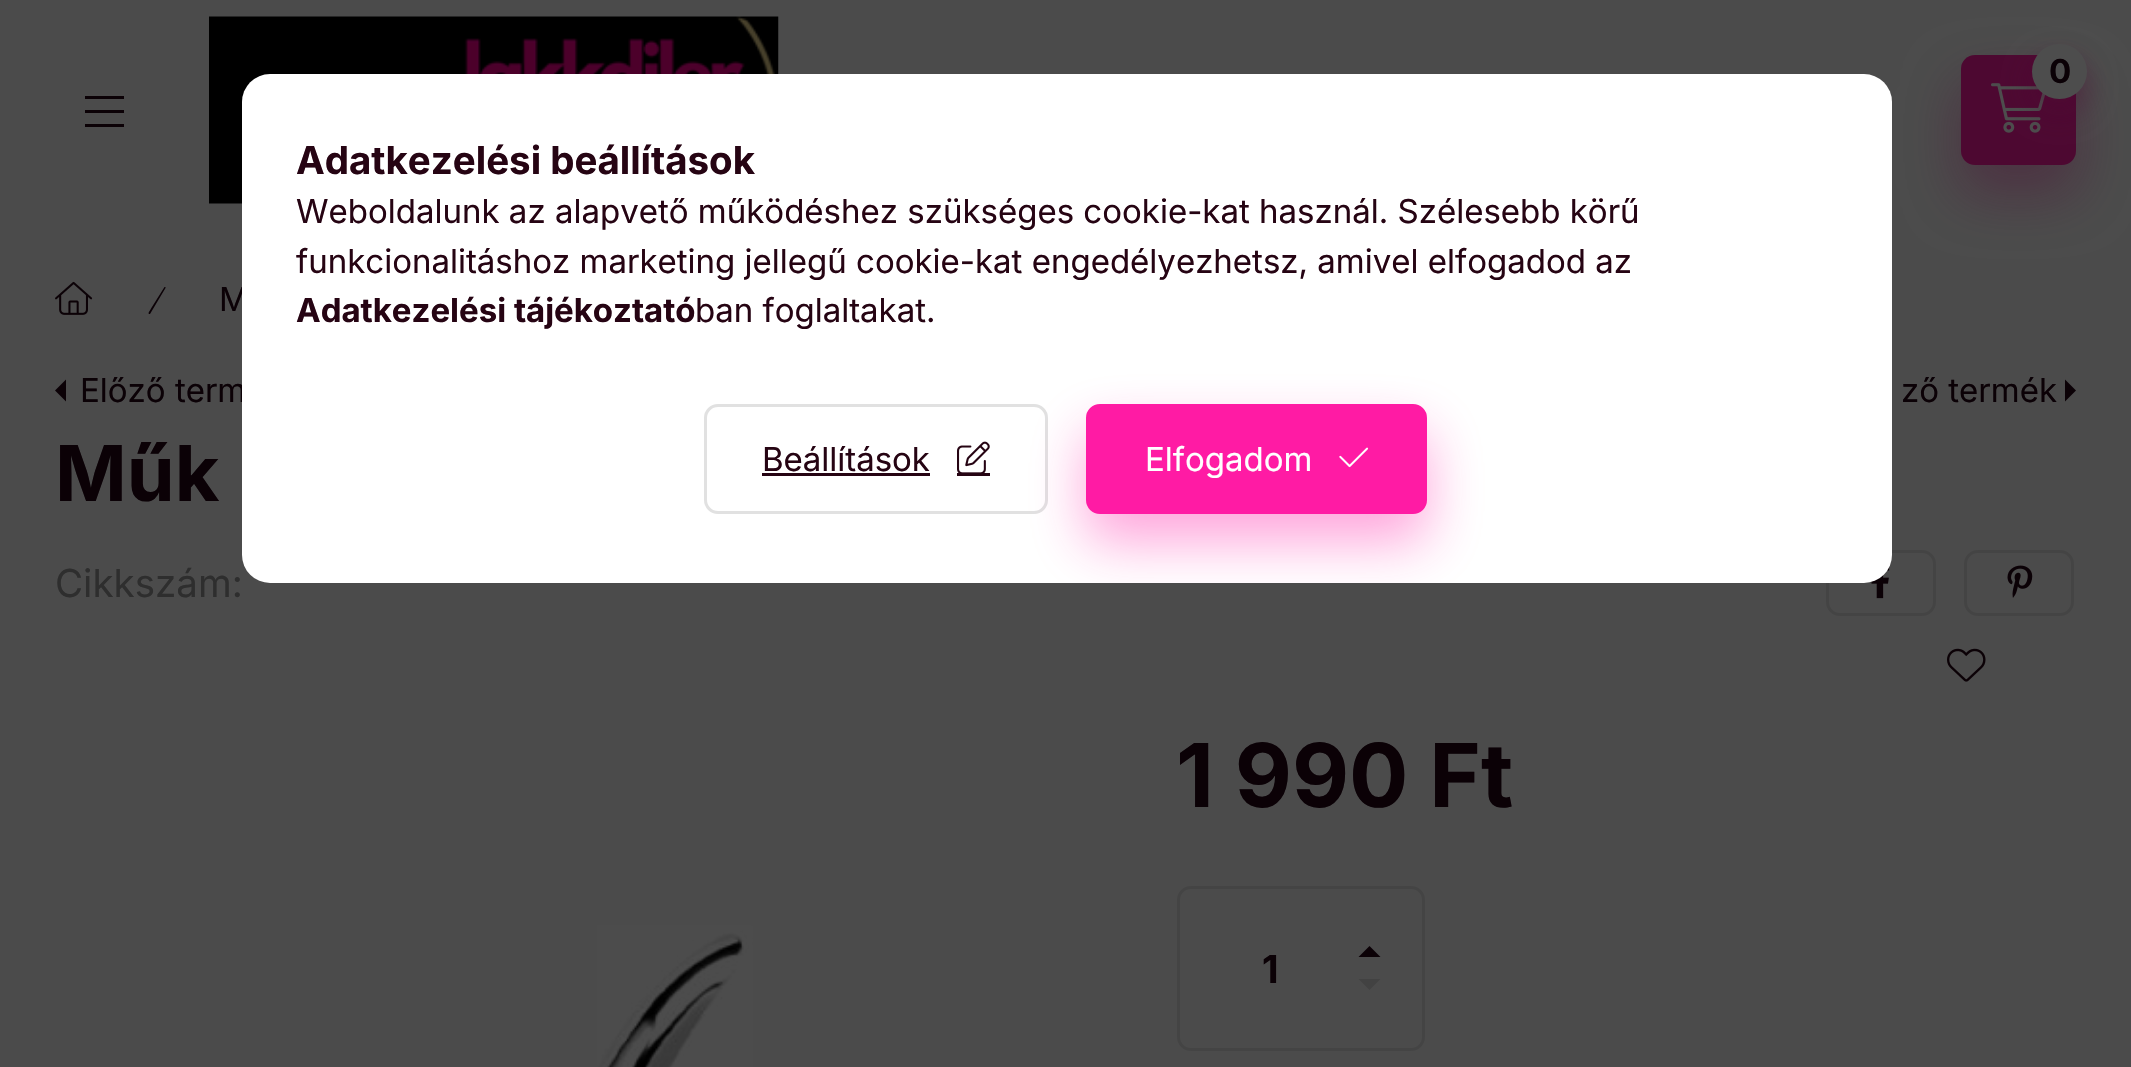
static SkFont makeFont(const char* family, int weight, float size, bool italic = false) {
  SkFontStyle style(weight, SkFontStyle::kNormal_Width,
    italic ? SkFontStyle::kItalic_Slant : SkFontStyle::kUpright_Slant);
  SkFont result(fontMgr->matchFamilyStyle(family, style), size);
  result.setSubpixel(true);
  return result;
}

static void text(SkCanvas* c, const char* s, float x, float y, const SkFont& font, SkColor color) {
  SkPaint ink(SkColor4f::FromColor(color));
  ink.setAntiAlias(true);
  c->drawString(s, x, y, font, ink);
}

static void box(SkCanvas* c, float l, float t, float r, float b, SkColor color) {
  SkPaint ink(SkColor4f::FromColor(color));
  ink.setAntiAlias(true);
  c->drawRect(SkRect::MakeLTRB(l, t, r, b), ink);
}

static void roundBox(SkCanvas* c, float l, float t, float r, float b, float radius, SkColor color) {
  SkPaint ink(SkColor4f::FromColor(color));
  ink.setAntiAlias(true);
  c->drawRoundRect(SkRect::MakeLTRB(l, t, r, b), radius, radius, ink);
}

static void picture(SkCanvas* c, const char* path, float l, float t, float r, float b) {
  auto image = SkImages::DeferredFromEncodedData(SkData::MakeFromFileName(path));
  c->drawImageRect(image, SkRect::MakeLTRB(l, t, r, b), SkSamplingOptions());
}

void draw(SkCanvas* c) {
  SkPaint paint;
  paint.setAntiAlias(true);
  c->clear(0xff4b4b4b);
  box(c, 85, 96, 124, 99, 0xff0b0106);
  box(c, 85, 110, 124, 113, 0xff0b0106);
  box(c, 85, 124, 124, 127, 0xff0b0106);
  picture(c, "img_01.png", 209, 16, 779, 204);
  paint.setColor(0x664d0831);
  paint.setMaskFilter(SkMaskFilter::MakeBlur(kNormal_SkBlurStyle, 27.5f));
  c->drawRoundRect(SkRect::MakeLTRB(1961, 83, 2076, 193), 14, 14, paint);
  paint.setMaskFilter(nullptr);
  roundBox(c, 1961, 55, 2076, 165, 14, 0xff4d0831);
  picture(c, "img_02.png", 1991, 83, 2046, 133);
  paint.setMaskFilter(SkMaskFilter::MakeBlur(kNormal_SkBlurStyle, 14));
  c->drawRoundRect(SkRect::MakeLTRB(2032, 58, 2087, 113), 27.5f, 27.5f, paint);
  paint.setMaskFilter(nullptr);
  paint.setColor(0xff4d4d4d);
  c->drawCircle(2059.5f, 71.5f, 27.5f, paint);
  SkFont face1 = makeFont("Inter", 700, 33);
  text(c, "0", 2049, 83, face1, 0xff0b0106);
  picture(c, "img_03.png", 55, 281, 93, 315);
  paint.setColor(0xff0b0106);
  c->drawPath(SkPathBuilder().moveTo(165.5f, 287).lineTo(164.5f, 287).lineTo(151, 308.5f).cubicTo(150.5f, 310, 147.5f, 313, 149, 314).lineTo(149.5f, 314).lineTo(150, 314).lineTo(165.5f, 288).close().detach(), paint);
  SkFont face2 = makeFont("Inter", 400, 33);
  text(c, "M", 219, 311, face2, 0xff0b0106);
  c->drawPath(SkPathBuilder().moveTo(66, 401.5f).lineTo(66, 379.5f).lineTo(55, 390.5f).close().detach(), paint);
  text(c, "Előző term", 80, 402, face2, 0xff0b0106);
  text(c, "ző termék", 1901, 402, face2, 0xff0b0106);
  c->drawPath(SkPathBuilder().moveTo(2065, 401.5f).lineTo(2065, 379.5f).lineTo(2076, 390.5f).close().detach(), paint);
  SkFont face3 = makeFont("Inter", 700, 77);
  text(c, "Műk", 55, 501, face3, 0xff0b0106);
  SkFont face4 = makeFont("Inter", 400, 38.5f);
  text(c, "Cikkszám:", 55, 597, face4, 0xff2e2e2e);
  paint.setStyle(SkPaint::kStroke_Style);
  paint.setStrokeWidth(3);
  paint.setColor(0xff444444);
  c->drawRoundRect(SkRect::MakeLTRB(1827.5f, 551.5f, 1934.5f, 614.5f), 12.5f, 12.5f, paint);
  picture(c, "img_04.png", 1871, 565, 1890, 599);
  c->drawRoundRect(SkRect::MakeLTRB(1965.5f, 551.5f, 2072.5f, 614.5f), 12.5f, 12.5f, paint);
  picture(c, "img_05.png", 2007, 565, 2033, 598);
  picture(c, "img_06.png", 1947, 648, 1986, 682);
  picture(c, "img_07.png", 597, 925, 753, 1067);
  SkFont face5 = makeFont("Inter", 700, 88);
  text(c, "1 990 Ft", 1176, 807, face5, 0xff0b0106);
  c->drawRoundRect(SkRect::MakeLTRB(1178.5f, 887.5f, 1423.5f, 1049.5f), 12.5f, 12.5f, paint);
  SkFont face6 = makeFont("Inter", 700, 38.5f);
  text(c, "1", 1262, 983, face6, 0xff0b0106);
  paint.setStyle(SkPaint::kFill_Style);
  paint.setColor(0xff0b0106);
  c->drawPath(SkPathBuilder().moveTo(1380.5f, 957).lineTo(1358.5f, 957).lineTo(1369.5f, 946).close().detach(), paint);
  paint.setColor(0xff424242);
  c->drawPath(SkPathBuilder().moveTo(1358.5f, 979).lineTo(1380.5f, 979).lineTo(1369.5f, 990).close().detach(), paint);
  roundBox(c, 242, 74, 1892, 583, 28, 0xffffffff);
  text(c, "Adatkezelési beállítások", 296, 174, face6, 0xff260413);
  text(c, "Weboldalunk az alapvető működéshez szükséges cookie-kat használ. Szélesebb körű", 296, 223, face2, 0xff260413);
  text(c, "funkcionalitáshoz marketing jellegű cookie-kat engedélyezhetsz, amivel elfogadod az", 296, 273, face2, 0xff260413);
  text(c, "Adatkezelési tájékoztató", 296, 322, face1, 0xff260413);
  text(c, "ban foglaltakat.", 695, 322, face2, 0xff260413);
  paint.setStyle(SkPaint::kStroke_Style);
  paint.setColor(0xffe1e1e1);
  c->drawRoundRect(SkRect::MakeLTRB(705.5f, 405.5f, 1046.5f, 512.5f), 12.5f, 12.5f, paint);
  text(c, "Beállítások", 762, 471, face2, 0xff260413);
  box(c, 762, 473, 930, 476, 0xff260413);
  picture(c, "img_08.png", 957, 441, 990, 473);
  box(c, 957, 473, 990, 476, 0xff260413);
  c->save();
  c->clipPath(SkPathBuilder().moveTo(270, 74).lineTo(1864, 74).cubicTo(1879.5f, 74, 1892, 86.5f, 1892, 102).lineTo(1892, 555).cubicTo(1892, 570.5f, 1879.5f, 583, 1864, 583).lineTo(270, 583).cubicTo(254.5f, 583, 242, 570.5f, 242, 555).lineTo(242, 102).cubicTo(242, 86.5f, 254.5f, 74, 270, 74).close().detach(), true);
  paint.setStyle(SkPaint::kFill_Style);
  paint.setColor(0x66ff1ba4);
  paint.setMaskFilter(SkMaskFilter::MakeBlur(kNormal_SkBlurStyle, 27.5f));
  c->drawRoundRect(SkRect::MakeLTRB(1086, 432, 1427, 542), 14, 14, paint);
  paint.setMaskFilter(nullptr);
  c->restore();
  paint.setColor(0xffff1ba4);
  c->drawRoundRect(SkRect::MakeLTRB(1087.5f, 405.5f, 1425.5f, 512.5f), 12.5f, 12.5f, paint);
  paint.setStyle(SkPaint::kStroke_Style);
  c->drawRoundRect(SkRect::MakeLTRB(1087.5f, 405.5f, 1425.5f, 512.5f), 12.5f, 12.5f, paint);
  text(c, "Elfogadom", 1145, 471, face2, 0xffffffff);
  picture(c, "img_09.png", 1339, 447, 1369, 468);
}
